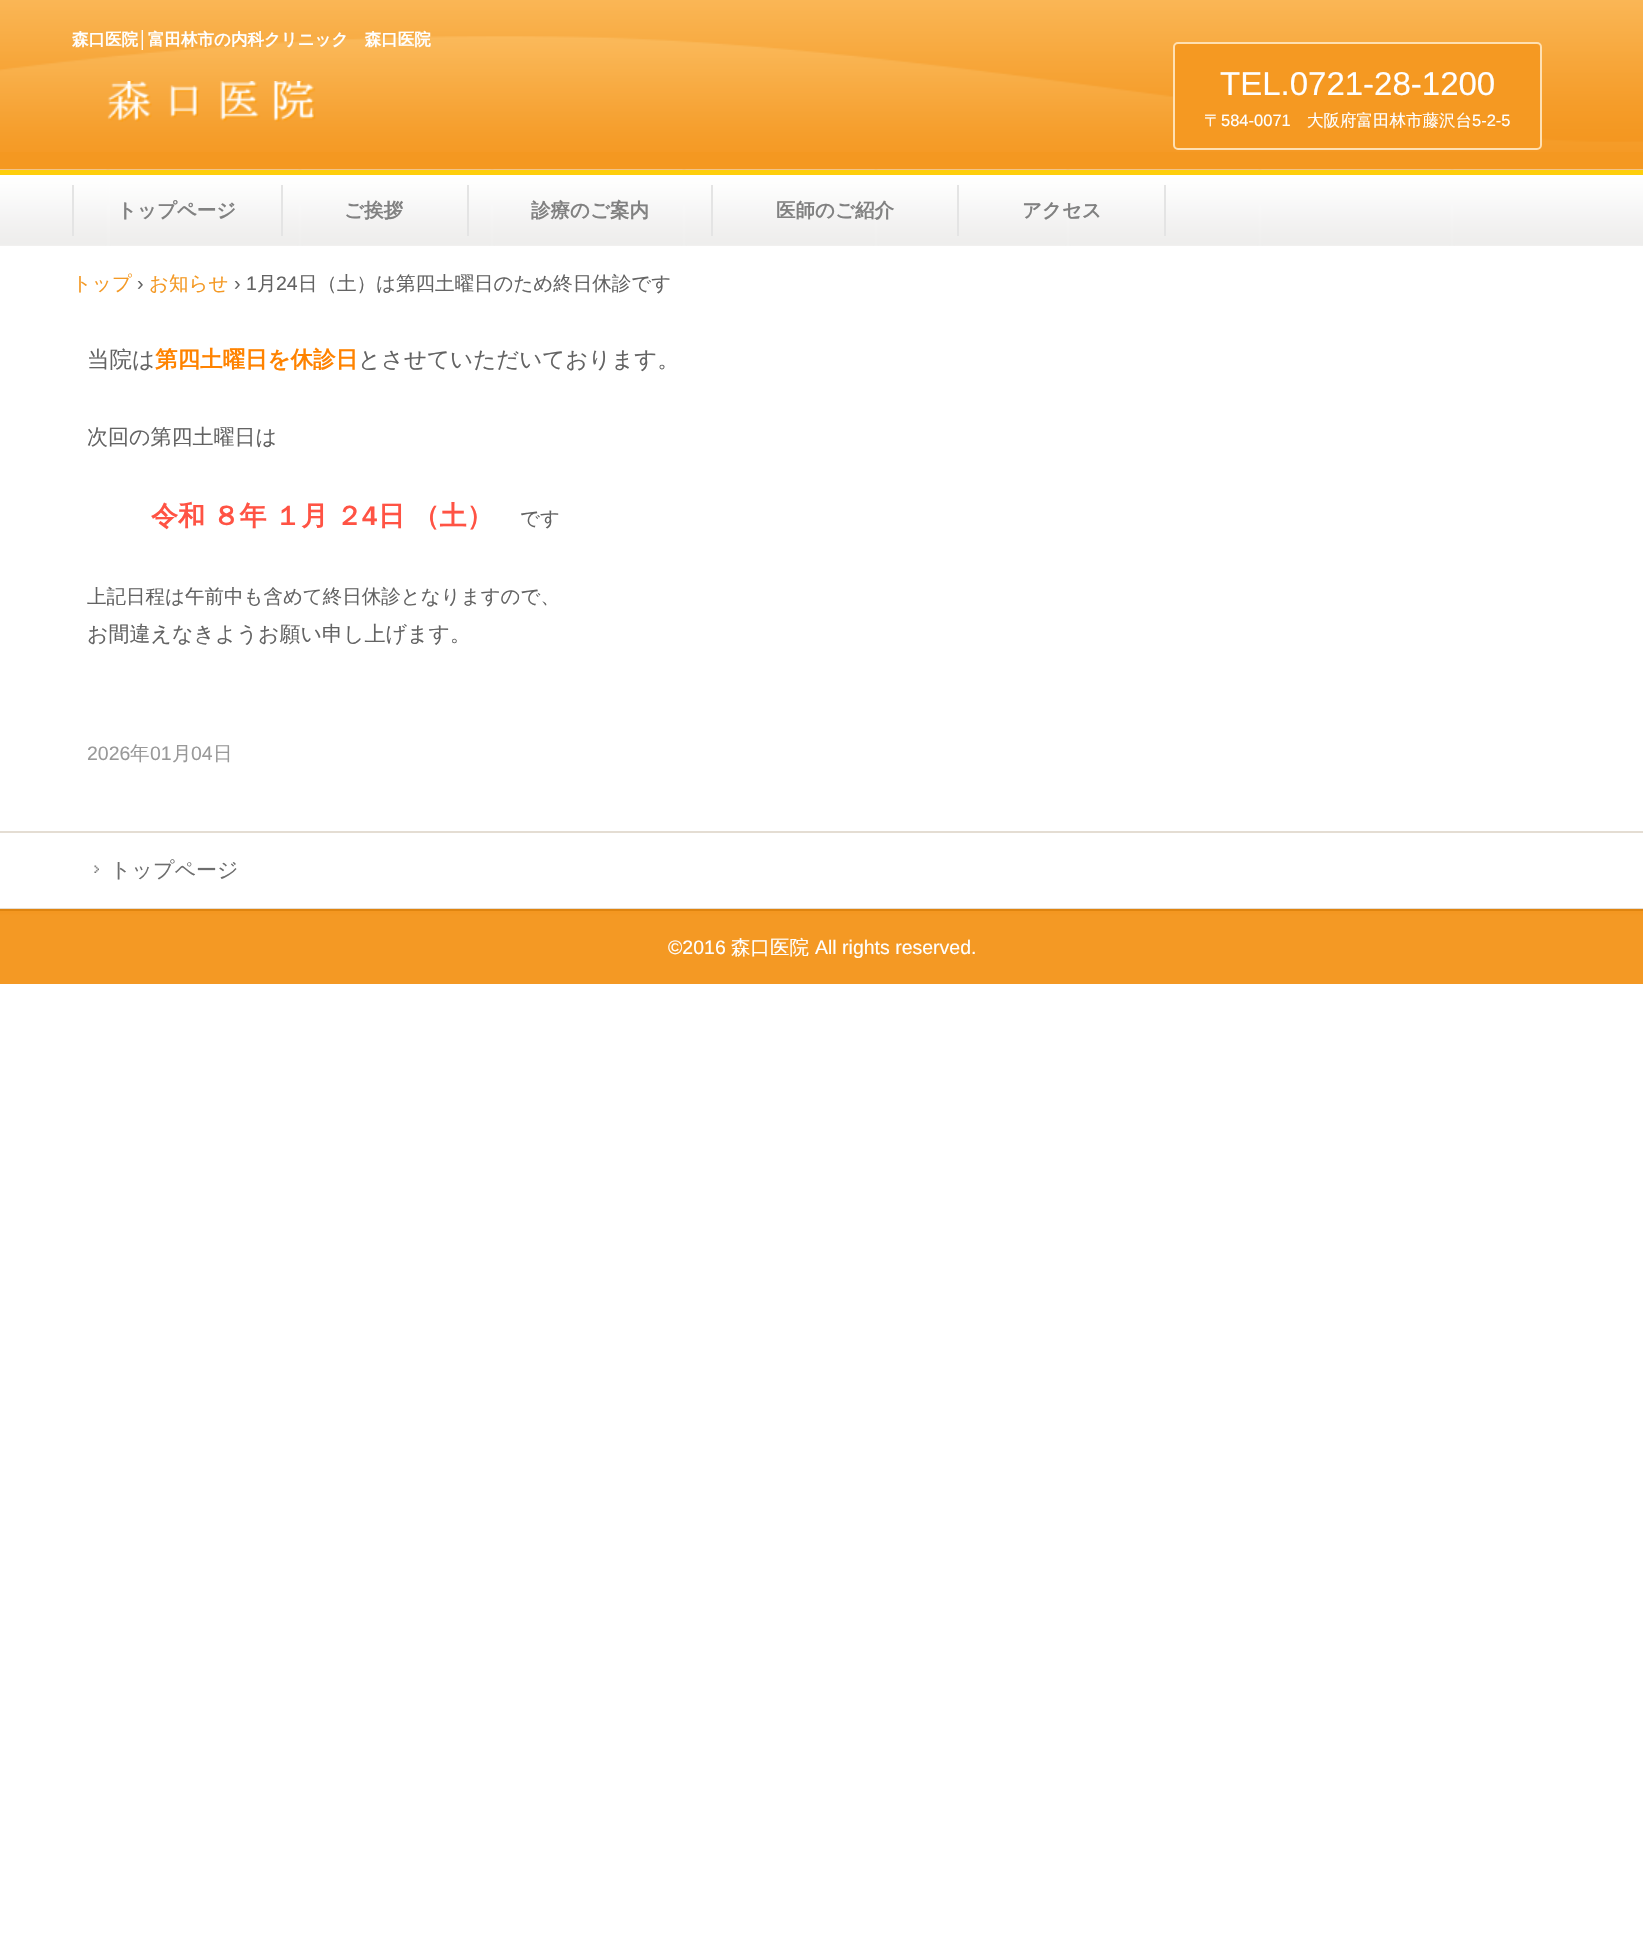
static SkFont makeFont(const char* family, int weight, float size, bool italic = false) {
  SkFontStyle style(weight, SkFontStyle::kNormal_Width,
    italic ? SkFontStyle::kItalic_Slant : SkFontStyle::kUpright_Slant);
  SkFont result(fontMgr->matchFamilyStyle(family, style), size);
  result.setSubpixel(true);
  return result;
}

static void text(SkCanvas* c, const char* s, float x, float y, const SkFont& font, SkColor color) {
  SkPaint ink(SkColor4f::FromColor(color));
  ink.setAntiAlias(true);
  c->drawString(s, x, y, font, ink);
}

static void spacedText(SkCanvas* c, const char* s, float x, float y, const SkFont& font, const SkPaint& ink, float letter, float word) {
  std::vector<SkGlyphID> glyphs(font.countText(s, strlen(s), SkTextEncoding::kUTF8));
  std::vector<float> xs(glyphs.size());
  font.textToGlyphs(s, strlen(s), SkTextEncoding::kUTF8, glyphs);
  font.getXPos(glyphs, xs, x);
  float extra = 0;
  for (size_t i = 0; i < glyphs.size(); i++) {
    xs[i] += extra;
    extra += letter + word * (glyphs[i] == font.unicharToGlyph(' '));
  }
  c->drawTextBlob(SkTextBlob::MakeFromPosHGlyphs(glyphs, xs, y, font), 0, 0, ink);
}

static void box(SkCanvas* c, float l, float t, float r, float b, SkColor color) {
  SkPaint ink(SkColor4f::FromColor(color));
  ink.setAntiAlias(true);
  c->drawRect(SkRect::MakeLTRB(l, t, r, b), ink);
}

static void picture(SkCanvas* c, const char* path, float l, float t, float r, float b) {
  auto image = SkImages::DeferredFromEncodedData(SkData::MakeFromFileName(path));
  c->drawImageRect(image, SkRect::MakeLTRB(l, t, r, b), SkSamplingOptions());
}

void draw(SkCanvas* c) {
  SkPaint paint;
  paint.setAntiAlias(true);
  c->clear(0xffffffff);
  box(c, 0, 152, 1643, 170, 0xfff49821);
  picture(c, "img_01.png", 0, 0, 1643, 152);
  SkFont face1 = makeFont("WenQuanYi Zen Hei", 700, 16.5f);
  text(c, "森口医院", 72, 45, face1, 0xffffffff);
  SkFont face2 = makeFont("Liberation Sans", 700, 16.5f);
  text(c, "│", 138, 45, face2, 0xffffffff);
  text(c, "富田林市の内科クリニック　森口医院", 148, 45, face1, 0xffffffff);
  picture(c, "img_02.png", 107, 81, 316, 122);
  paint.setColor(0xfff59922);
  c->drawRoundRect(SkRect::MakeLTRB(1174, 43, 1541, 149), 4, 4, paint);
  paint.setStyle(SkPaint::kStroke_Style);
  paint.setStrokeWidth(2);
  paint.setColor(0xffffe0b2);
  c->drawRoundRect(SkRect::MakeLTRB(1174, 43, 1541, 149), 4, 4, paint);
  SkFont face3 = makeFont("Liberation Sans", 400, 33);
  text(c, "TEL.0721-28-1200", 1220, 95, face3, 0xffffffff);
  SkFont face4 = makeFont("WenQuanYi Zen Hei", 500, 16.5f);
  text(c, "〒", 1204, 126, face4, 0xffffffff);
  SkFont face5 = makeFont("Liberation Sans", 400, 16.5f);
  text(c, "584-0071", 1221, 126, face5, 0xffffffff);
  text(c, "大阪府富田林市藤沢台", 1307, 126, face4, 0xffffffff);
  text(c, "5-2-5", 1472, 126, face5, 0xffffffff);
  picture(c, "img_03.png", 0, 169, 1643, 246);
  box(c, 0, 170, 1643, 175, 0xfffece0c);
  box(c, 281, 185, 283, 236, 0xffe4e4e4);
  box(c, 72, 185, 74, 236, 0xffe4e4e4);
  SkFont face6 = makeFont("WenQuanYi Zen Hei", 700, 19.5f);
  text(c, "トップページ", 117, 217, face6, 0xff818181);
  box(c, 467, 185, 469, 236, 0xffe4e4e4);
  text(c, "ご挨拶", 344, 217, face6, 0xff818181);
  box(c, 711, 185, 713, 236, 0xffe4e4e4);
  text(c, "診療のご案内", 531, 217, face6, 0xff818181);
  box(c, 957, 185, 959, 236, 0xffe4e4e4);
  text(c, "医師のご紹介", 776, 217, face6, 0xff818181);
  box(c, 1164, 185, 1166, 236, 0xffe4e4e4);
  text(c, "アクセス", 1022, 217, face6, 0xff818181);
  SkFont face7 = makeFont("WenQuanYi Zen Hei", 500, 19.5f);
  text(c, "トップ", 72, 290, face7, 0xfff49924);
  SkFont face8 = makeFont("Liberation Sans", 400, 19.5f);
  text(c, "›", 137, 290, face8, 0xff636363);
  text(c, "お知らせ", 149, 290, face7, 0xfff49924);
  text(c, "› 1", 234, 290, face8, 0xff636363);
  text(c, "月", 257, 290, face7, 0xff636363);
  text(c, "24", 276, 290, face8, 0xff636363);
  text(c, "日（土）は第四土曜日のため終日休診です", 298, 290, face7, 0xff636363);
  SkFont face9 = makeFont("WenQuanYi Zen Hei", 500, 22.5f);
  text(c, "当院は", 87, 367, face9, 0xff636363);
  SkFont face10 = makeFont("WenQuanYi Zen Hei", 700, 22.5f);
  text(c, "第四土曜日を休診日", 155, 367, face10, 0xffff8300);
  text(c, "とさせていただいております。", 358, 367, face9, 0xff636363);
  SkFont face11 = makeFont("WenQuanYi Zen Hei", 500, 21);
  text(c, "次回の第四土曜日は", 87, 444, face11, 0xff636363);
  SkFont face12 = makeFont("WenQuanYi Zen Hei", 700, 27);
  paint.setStyle(SkPaint::kFill_Style);
  paint.setColor(0xffff5344);
  spacedText(c, "令和 ８年 １月 ２", 151, 525, face12, paint, 0, -0.5f);
  SkFont face13 = makeFont("Liberation Sans", 700, 27);
  text(c, "4", 362, 525, face13, 0xffff5344);
  spacedText(c, "日 （土）", 378, 525, face12, paint, 0, -0.5f);
  text(c, "です", 520, 525, face7, 0xff636363);
  text(c, "上記日程は午前中も含めて終日休診となりますので、", 87, 603, face7, 0xff636363);
  text(c, "お間違えなきようお願い申し上げます。", 87, 641, face11, 0xff636363);
  text(c, "2026", 87, 760, face8, 0xff999999);
  text(c, "年", 130, 760, face7, 0xff999999);
  text(c, "01", 150, 760, face8, 0xff999999);
  text(c, "月", 172, 760, face7, 0xff999999);
  text(c, "04", 191, 760, face8, 0xff999999);
  text(c, "日", 213, 760, face7, 0xff999999);
  picture(c, "img_04.png", 0, 911, 1643, 984);
  box(c, 0, 831, 1643, 833, 0xffe4ddd3);
  box(c, 0, 908, 1643, 909, 0xffe4ddd3);
  picture(c, "img_05.png", 94, 865, 99, 873);
  text(c, "トップページ", 110, 877, face11, 0xff6e6e6e);
  box(c, 0, 909, 1643, 911, 0xffe08510);
  text(c, "©2016", 668, 954, face8, 0xffffffff);
  text(c, "森口医院", 731, 954, face7, 0xffffffff);
  text(c, "All rights reserved.", 815, 954, face8, 0xffffffff);
}
